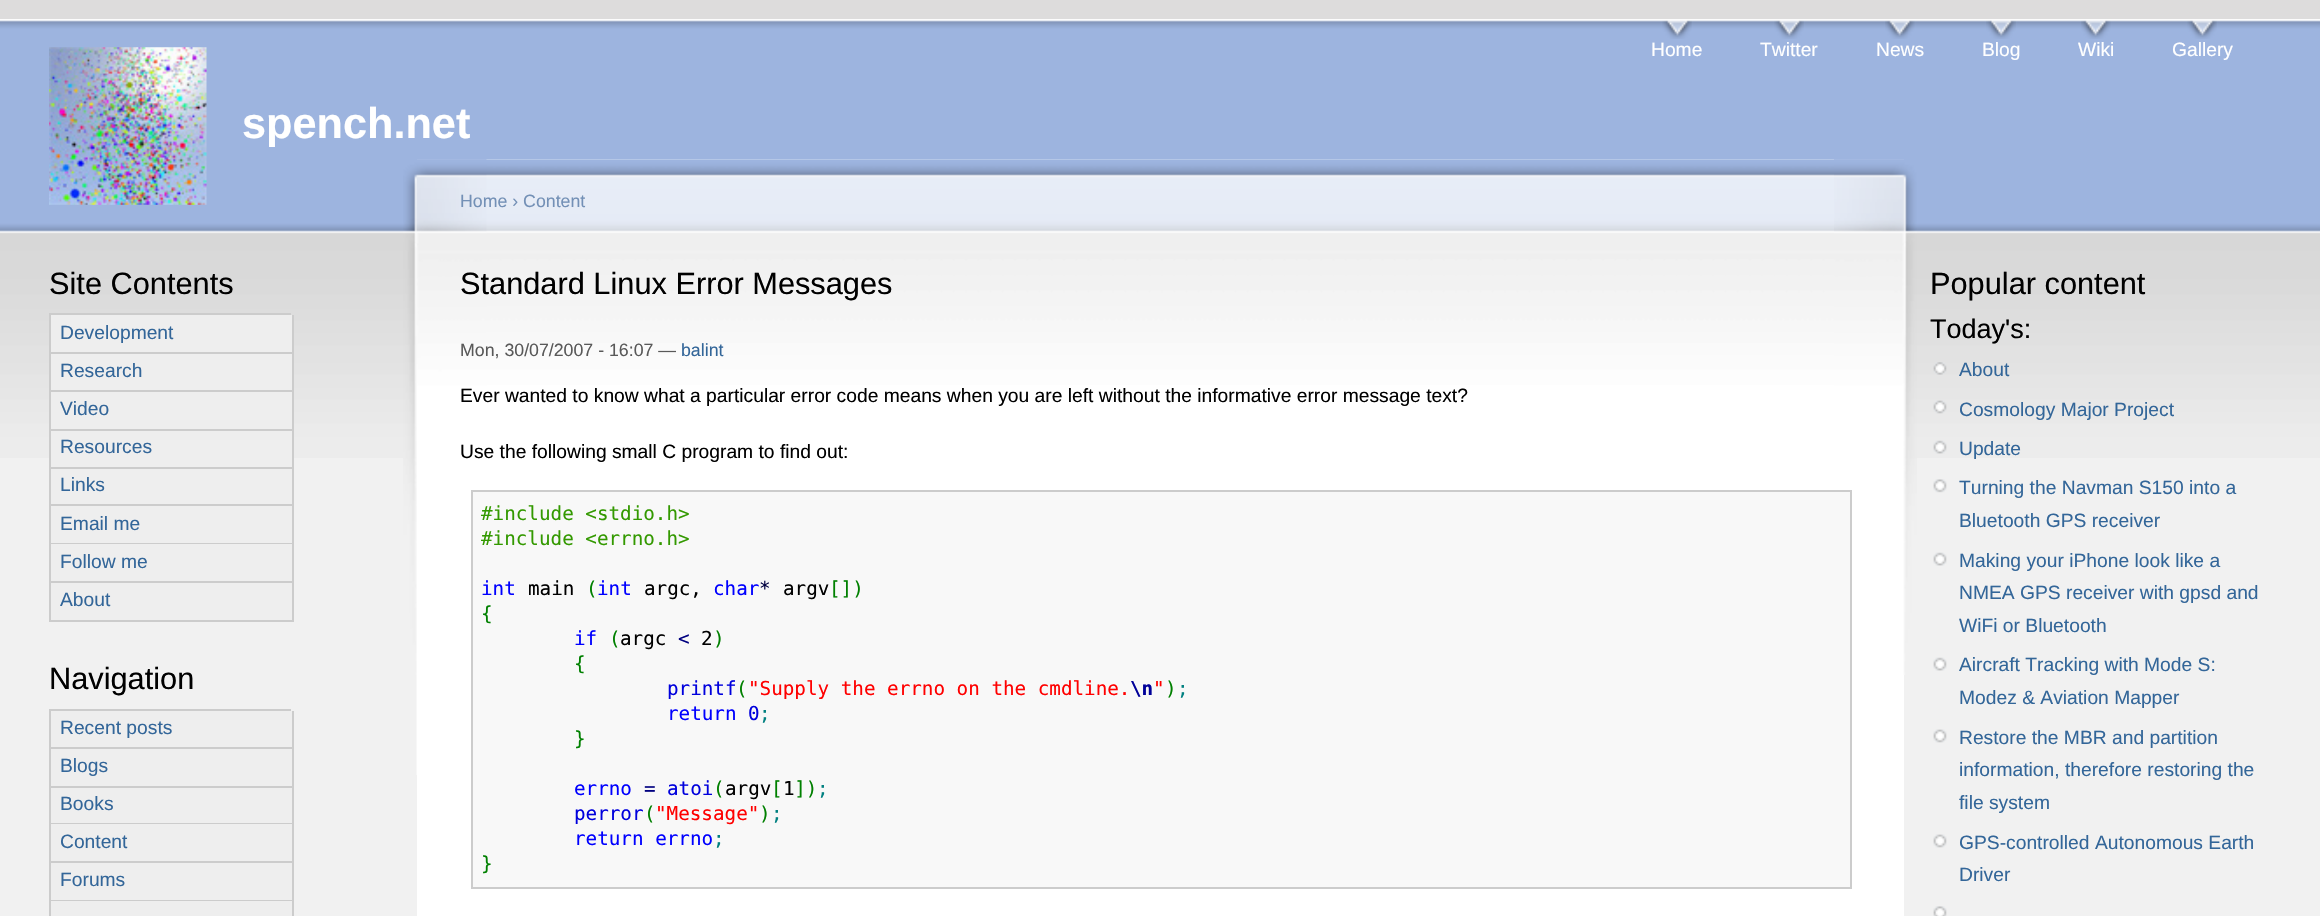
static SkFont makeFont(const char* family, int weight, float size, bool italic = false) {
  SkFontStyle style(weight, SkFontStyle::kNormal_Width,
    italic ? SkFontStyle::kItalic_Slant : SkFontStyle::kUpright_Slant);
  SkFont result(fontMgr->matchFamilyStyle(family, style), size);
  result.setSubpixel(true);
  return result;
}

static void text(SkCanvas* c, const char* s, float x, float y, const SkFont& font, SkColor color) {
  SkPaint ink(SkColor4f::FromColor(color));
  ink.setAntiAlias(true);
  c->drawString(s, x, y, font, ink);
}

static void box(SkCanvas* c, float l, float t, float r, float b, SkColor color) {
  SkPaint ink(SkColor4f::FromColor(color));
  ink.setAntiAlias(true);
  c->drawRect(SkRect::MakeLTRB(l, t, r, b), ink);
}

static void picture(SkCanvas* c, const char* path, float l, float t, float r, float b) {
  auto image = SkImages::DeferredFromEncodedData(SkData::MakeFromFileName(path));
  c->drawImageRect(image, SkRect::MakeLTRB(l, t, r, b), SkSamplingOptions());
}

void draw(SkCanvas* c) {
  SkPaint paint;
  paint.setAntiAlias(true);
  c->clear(0xffdddcdc);
  box(c, 0, 19, 2320, 916, 0xfff1f1f1);
  picture(c, "img_01.png", 0, 19, 2320, 458);
  picture(c, "img_02.png", 1662, 20, 1692, 39);
  SkFont face1 = makeFont("Liberation Sans", 400, 19.25f);
  text(c, "Home", 1651, 56, face1, 0xffffffff);
  picture(c, "img_03.png", 1774, 20, 1804, 39);
  text(c, "Twitter", 1760, 56, face1, 0xffffffff);
  picture(c, "img_04.png", 1885, 20, 1915, 39);
  text(c, "News", 1876, 56, face1, 0xffffffff);
  picture(c, "img_05.png", 1986, 20, 2016, 39);
  text(c, "Blog", 1982, 56, face1, 0xffffffff);
  picture(c, "img_06.png", 2081, 20, 2111, 39);
  text(c, "Wiki", 2078, 56, face1, 0xffffffff);
  picture(c, "img_02.png", 2187, 20, 2217, 39);
  text(c, "Gallery", 2172, 56, face1, 0xffffffff);
  picture(c, "img_07.png", 49, 47, 207, 205);
  SkFont face2 = makeFont("Liberation Sans", 700, 43.25f);
  text(c, "spench.net", 242, 138, face2, 0xffffffff);
  SkFont face3 = makeFont("Liberation Sans", 400, 30.75f);
  text(c, "Site Contents", 49, 294, face3, 0xff000000);
  box(c, 49, 313, 291, 315, 0xffcccccc);
  box(c, 51, 315, 292, 352, 0xffeeeeee);
  box(c, 292, 315, 294, 621, 0xffcccccc);
  box(c, 49, 352, 294, 354, 0xffcccccc);
  box(c, 49, 315, 51, 354, 0xffcccccc);
  text(c, "Development", 60, 339, face1, 0xff336699);
  box(c, 51, 354, 292, 390, 0xffeeeeee);
  box(c, 49, 390, 294, 392, 0xffcccccc);
  box(c, 49, 354, 51, 392, 0xffcccccc);
  text(c, "Research", 60, 377, face1, 0xff336699);
  box(c, 51, 392, 292, 429, 0xffeeeeee);
  box(c, 49, 429, 294, 431, 0xffcccccc);
  box(c, 49, 392, 51, 431, 0xffcccccc);
  text(c, "Video", 60, 415, face1, 0xff336699);
  box(c, 51, 431, 292, 467, 0xffeeeeee);
  box(c, 49, 467, 294, 469, 0xffcccccc);
  box(c, 49, 431, 51, 469, 0xffcccccc);
  text(c, "Resources", 60, 453, face1, 0xff336699);
  box(c, 51, 469, 292, 504, 0xffeeeeee);
  box(c, 49, 504, 294, 506, 0xffcccccc);
  box(c, 49, 469, 51, 506, 0xffcccccc);
  text(c, "Links", 60, 491, face1, 0xff336699);
  box(c, 51, 506, 292, 543, 0xffeeeeee);
  box(c, 49, 543, 294, 544, 0xffcccccc);
  box(c, 49, 506, 51, 544, 0xffcccccc);
  text(c, "Email me", 60, 530, face1, 0xff336699);
  box(c, 51, 544, 292, 581, 0xffeeeeee);
  box(c, 49, 581, 294, 583, 0xffcccccc);
  box(c, 49, 544, 51, 583, 0xffcccccc);
  text(c, "Follow me", 60, 568, face1, 0xff336699);
  box(c, 51, 583, 292, 620, 0xffeeeeee);
  box(c, 49, 620, 294, 622, 0xffcccccc);
  box(c, 49, 583, 51, 621, 0xffcccccc);
  text(c, "About", 60, 606, face1, 0xff336699);
  text(c, "Navigation", 49, 689, face3, 0xff000000);
  box(c, 49, 709, 291, 711, 0xffcccccc);
  box(c, 51, 711, 292, 747, 0xffeeeeee);
  box(c, 292, 711, 294, 916, 0xffcccccc);
  box(c, 49, 747, 294, 749, 0xffcccccc);
  box(c, 49, 711, 51, 749, 0xffcccccc);
  text(c, "Recent posts", 60, 734, face1, 0xff336699);
  box(c, 51, 749, 292, 786, 0xffeeeeee);
  box(c, 49, 786, 294, 788, 0xffcccccc);
  box(c, 49, 749, 51, 788, 0xffcccccc);
  text(c, "Blogs", 60, 772, face1, 0xff336699);
  box(c, 51, 788, 292, 823, 0xffeeeeee);
  box(c, 49, 823, 294, 824, 0xffcccccc);
  box(c, 49, 788, 51, 824, 0xffcccccc);
  text(c, "Books", 60, 810, face1, 0xff336699);
  box(c, 51, 824, 292, 861, 0xffeeeeee);
  box(c, 49, 861, 294, 863, 0xffcccccc);
  box(c, 49, 824, 51, 863, 0xffcccccc);
  text(c, "Content", 60, 848, face1, 0xff336699);
  box(c, 51, 863, 292, 900, 0xffeeeeee);
  box(c, 49, 900, 294, 901, 0xffcccccc);
  box(c, 49, 863, 51, 916, 0xffcccccc);
  text(c, "Forums", 60, 886, face1, 0xff336699);
  box(c, 51, 901, 292, 916, 0xffeeeeee);
  box(c, 417, 159, 1904, 916, 0xffffffff);
  picture(c, "img_08.png", 416, 159, 1904, 490);
  picture(c, "img_09.png", 1834, 159, 1917, 675);
  picture(c, "img_10.png", 403, 159, 487, 775);
  SkFont face4 = makeFont("Liberation Sans", 400, 17.75f);
  text(c, "Home › Content", 460, 207, face4, 0xff7390b6);
  text(c, "Standard Linux Error Messages", 460, 294, face3, 0xff000000);
  text(c, "Mon, 30/07/2007 - 16:07 —", 460, 356, face4, 0xff595959);
  text(c, "balint", 681, 356, face4, 0xff336699);
  text(c, "Ever wanted to know what a particular error code means when you are left without the informative error message text?", 460, 402, face1, 0xff000000);
  text(c, "Use the following small C program to find out:", 460, 458, face1, 0xff000000);
  paint.setColor(0xfff8f8f8);
  c->drawRect(SkRect::MakeLTRB(472, 491, 1851, 888), paint);
  paint.setStyle(SkPaint::kStroke_Style);
  paint.setStrokeWidth(2);
  paint.setColor(0xffcccccc);
  c->drawRect(SkRect::MakeLTRB(472, 491, 1851, 888), paint);
  SkFont face5 = makeFont("DejaVu Sans Mono", 400, 19.25f);
  text(c, "#include <stdio.h>", 481, 520, face5, 0xff339900);
  text(c, "#include <errno.h>", 481, 545, face5, 0xff339900);
  text(c, "int", 481, 595, face5, 0xff0000ff);
  text(c, "main", 528, 595, face5, 0xff000000);
  text(c, "(", 586, 595, face5, 0xff008000);
  text(c, "int", 597, 595, face5, 0xff0000ff);
  text(c, "argc,", 644, 595, face5, 0xff000000);
  text(c, "char", 713, 595, face5, 0xff0000ff);
  text(c, "*", 759, 595, face5, 0xff000040);
  text(c, "argv", 783, 595, face5, 0xff000000);
  text(c, "[])", 829, 595, face5, 0xff008000);
  text(c, "{", 481, 620, face5, 0xff008000);
  text(c, "if", 574, 645, face5, 0xff0000ff);
  text(c, "(", 609, 645, face5, 0xff008000);
  text(c, "argc", 620, 645, face5, 0xff000000);
  text(c, "<", 678, 645, face5, 0xff000080);
  text(c, "2", 701, 645, face5, 0xff000000);
  text(c, ")", 713, 645, face5, 0xff008000);
  text(c, "{", 574, 670, face5, 0xff008000);
  text(c, "printf", 667, 695, face5, 0xff0000dd);
  text(c, "(", 736, 695, face5, 0xff008000);
  text(c, "\"Supply the errno on the cmdline.", 748, 695, face5, 0xffff0000);
  SkFont face6 = makeFont("DejaVu Sans Mono", 700, 19.25f);
  text(c, "\\n", 1130, 695, face6, 0xff000099);
  text(c, "\"", 1153, 695, face5, 0xffff0000);
  text(c, ")", 1165, 695, face5, 0xff008000);
  text(c, ";", 1177, 695, face5, 0xff008080);
  text(c, "return", 667, 720, face5, 0xff0000ff);
  text(c, "0", 748, 720, face5, 0xff0000dd);
  text(c, ";", 759, 720, face5, 0xff008080);
  text(c, "}", 574, 745, face5, 0xff008000);
  text(c, "errno", 574, 795, face5, 0xff0000ff);
  text(c, "=", 644, 795, face5, 0xff000080);
  text(c, "atoi", 667, 795, face5, 0xff0000dd);
  text(c, "(", 713, 795, face5, 0xff008000);
  text(c, "argv 1", 725, 795, face5, 0xff000000);
  text(c, "[ ])", 771, 795, face5, 0xff008000);
  text(c, ";", 817, 795, face5, 0xff008080);
  text(c, "perror", 574, 820, face5, 0xff0000dd);
  text(c, "(", 644, 820, face5, 0xff008000);
  text(c, "\"Message\"", 655, 820, face5, 0xffff0000);
  text(c, ")", 759, 820, face5, 0xff008000);
  text(c, ";", 771, 820, face5, 0xff008080);
  text(c, "return errno", 574, 845, face5, 0xff0000ff);
  text(c, ";", 713, 845, face5, 0xff008080);
  text(c, "}", 481, 870, face5, 0xff008000);
  text(c, "Popular content", 1930, 294, face3, 0xff000000);
  SkFont face7 = makeFont("Liberation Sans", 400, 27);
  text(c, "Today's:", 1930, 338, face7, 0xff000000);
  picture(c, "img_11.png", 1933, 362, 1947, 375);
  text(c, "About", 1959, 376, face1, 0xff336699);
  picture(c, "img_12.png", 1933, 400, 1947, 414);
  text(c, "Cosmology Major Project", 1959, 416, face1, 0xff336699);
  picture(c, "img_13.png", 1933, 440, 1947, 454);
  text(c, "Update", 1959, 455, face1, 0xff336699);
  picture(c, "img_14.png", 1933, 479, 1947, 493);
  text(c, "Turning the Navman S150 into a", 1959, 494, face1, 0xff336699);
  text(c, "Bluetooth GPS receiver", 1959, 527, face1, 0xff336699);
  picture(c, "img_15.png", 1933, 552, 1947, 566);
  text(c, "Making your iPhone look like a", 1959, 567, face1, 0xff336699);
  text(c, "NMEA GPS receiver with gpsd and", 1959, 599, face1, 0xff336699);
  text(c, "WiFi or Bluetooth", 1959, 632, face1, 0xff336699);
  picture(c, "img_15.png", 1933, 657, 1947, 671);
  text(c, "Aircraft Tracking with Mode S:", 1959, 671, face1, 0xff336699);
  text(c, "Modez & Aviation Mapper", 1959, 704, face1, 0xff336699);
  picture(c, "img_16.png", 1933, 729, 1947, 743);
  text(c, "Restore the MBR and partition", 1959, 744, face1, 0xff336699);
  text(c, "information, therefore restoring the", 1959, 776, face1, 0xff336699);
  text(c, "file system", 1959, 809, face1, 0xff336699);
  picture(c, "img_16.png", 1933, 834, 1947, 848);
  text(c, "GPS-controlled Autonomous Earth", 1959, 849, face1, 0xff336699);
  text(c, "Driver", 1959, 881, face1, 0xff336699);
  picture(c, "img_17.png", 1933, 906, 1947, 916);
}
